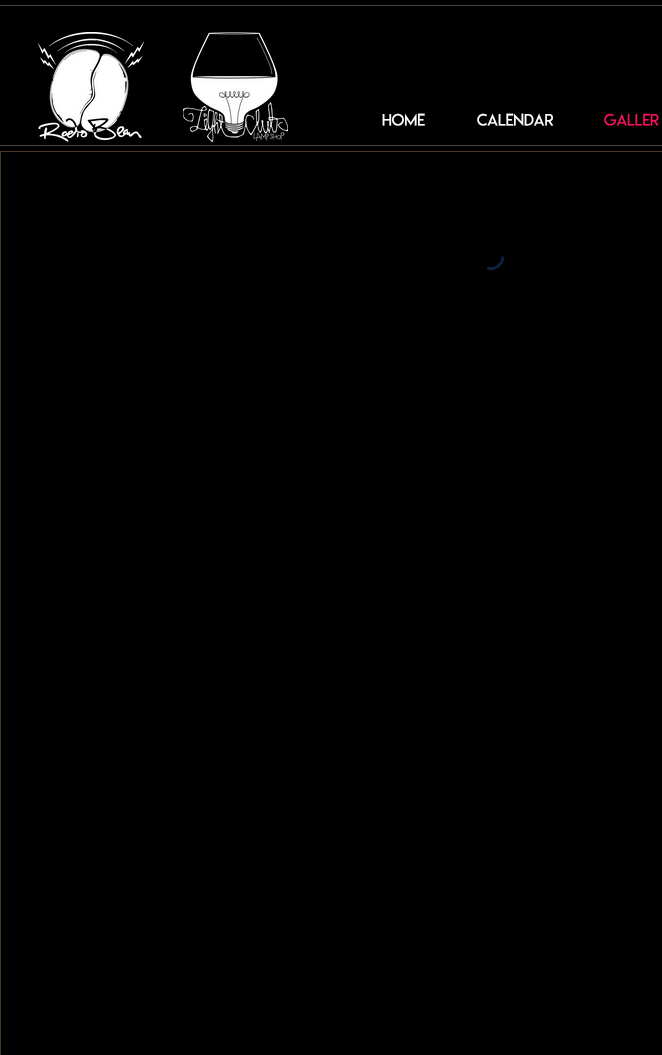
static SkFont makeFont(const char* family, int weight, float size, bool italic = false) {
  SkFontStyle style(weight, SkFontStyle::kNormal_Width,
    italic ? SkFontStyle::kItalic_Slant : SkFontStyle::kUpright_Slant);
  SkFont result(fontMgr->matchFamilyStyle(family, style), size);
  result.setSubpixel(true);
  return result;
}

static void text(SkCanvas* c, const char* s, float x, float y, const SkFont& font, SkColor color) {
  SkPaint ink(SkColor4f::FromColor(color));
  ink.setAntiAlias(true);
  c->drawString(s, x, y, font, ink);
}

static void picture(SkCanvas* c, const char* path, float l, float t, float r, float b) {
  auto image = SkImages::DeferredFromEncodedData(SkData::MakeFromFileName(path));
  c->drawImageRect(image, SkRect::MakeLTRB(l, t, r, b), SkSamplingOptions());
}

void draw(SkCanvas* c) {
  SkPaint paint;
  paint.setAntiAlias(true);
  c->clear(0xff000000);
  paint.setStyle(SkPaint::kStroke_Style);
  paint.setStrokeWidth(1);
  paint.setColor(0xff494440);
  c->drawRect(SkRect::MakeLTRB(-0.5f, 5.5f, 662.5f, 145.5f), paint);
  picture(c, "img_01.png", 38, 32, 144, 142);
  picture(c, "img_02.png", 183, 32, 288, 142);
  SkFont face1 = makeFont("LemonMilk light", 300, 16);
  text(c, "HOME", 382, 126, face1, 0xffffffff);
  text(c, "CALENDAR", 477, 126, face1, 0xffffffff);
  text(c, "GALLER", 604, 126, face1, 0xfff7115f);
  picture(c, "img_03.png", 486, 256, 505, 271);
  paint.setColor(0xff473921);
  c->drawRect(SkRect::MakeLTRB(0.5f, 151.5f, 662.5f, 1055.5f), paint);
}
